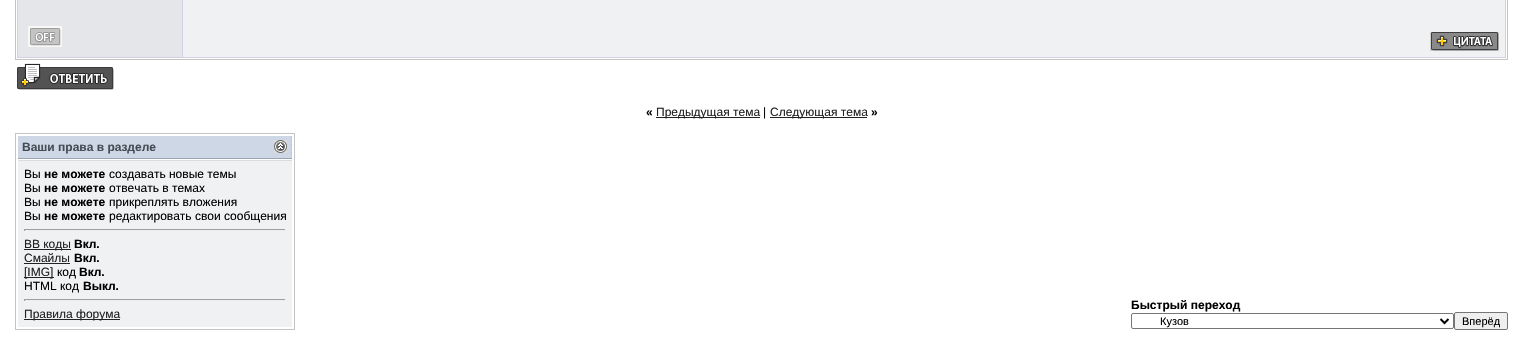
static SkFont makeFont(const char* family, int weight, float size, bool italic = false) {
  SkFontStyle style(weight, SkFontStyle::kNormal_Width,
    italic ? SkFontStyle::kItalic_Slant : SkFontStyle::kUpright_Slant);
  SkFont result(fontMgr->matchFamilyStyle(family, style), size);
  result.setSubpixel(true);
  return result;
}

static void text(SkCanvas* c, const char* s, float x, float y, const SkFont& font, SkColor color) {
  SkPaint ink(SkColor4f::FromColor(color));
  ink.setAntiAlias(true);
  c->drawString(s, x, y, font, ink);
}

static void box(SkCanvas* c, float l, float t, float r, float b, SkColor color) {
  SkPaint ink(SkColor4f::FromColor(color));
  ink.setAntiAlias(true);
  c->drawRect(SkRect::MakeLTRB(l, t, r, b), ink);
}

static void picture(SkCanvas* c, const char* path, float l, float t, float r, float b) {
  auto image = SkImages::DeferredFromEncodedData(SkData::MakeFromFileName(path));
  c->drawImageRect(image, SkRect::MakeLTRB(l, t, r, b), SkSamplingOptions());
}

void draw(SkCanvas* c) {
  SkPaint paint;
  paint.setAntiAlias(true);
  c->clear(0xffffffff);
  paint.setStyle(SkPaint::kStroke_Style);
  paint.setStrokeWidth(1);
  paint.setColor(0xffc4c4c4);
  c->drawRect(SkRect::MakeLTRB(15.5f, -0.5f, 1507.5f, 59.5f), paint);
  box(c, 18, 0, 182, 57, 0xffe4e6e9);
  box(c, 182, 0, 183, 58, 0xffd1d1e1);
  box(c, 17, 0, 18, 16, 0xffd1d1e1);
  box(c, 183, 0, 1505, 57, 0xffeff1f3);
  box(c, 1505, 0, 1506, 58, 0xffd1d1e1);
  box(c, 17, 57, 1506, 58, 0xffd1d1e1);
  box(c, 17, 16, 18, 58, 0xffd1d1e1);
  picture(c, "img_01.png", 28, 26, 62, 47);
  picture(c, "img_02.png", 1430, 32, 1499, 51);
  picture(c, "img_03.png", 17, 63, 114, 90);
  SkFont face1 = makeFont("Liberation Sans", 700, 12);
  text(c, "«", 646, 116, face1, 0xff000000);
  box(c, 656, 117, 760, 118, 0xff222222);
  SkFont face2 = makeFont("Liberation Sans", 400, 12);
  text(c, "Предыдущая тема", 656, 116, face2, 0xff222222);
  text(c, "|", 763, 116, face2, 0xff000000);
  box(c, 770, 117, 867, 118, 0xff222222);
  text(c, "Следующая тема", 770, 116, face2, 0xff222222);
  text(c, "»", 871, 116, face1, 0xff000000);
  c->drawRect(SkRect::MakeLTRB(15.5f, 133.5f, 294.5f, 329.5f), paint);
  box(c, 18, 136, 292, 158, 0xffced7e5);
  paint.setColor(0xffb0bbcd);
  paint.setPathEffect(SkDashPathEffect::Make({{1, 1}}, 0));
  c->drawPath(SkPathBuilder().moveTo(291.5f, 136).lineTo(291.5f, 159).detach(), paint);
  paint.setPathEffect(nullptr);
  box(c, 18, 158, 292, 159, 0xff9aa4b1);
  text(c, "Ваши права в разделе", 22, 151, face1, 0xff464c55);
  picture(c, "img_04.png", 274, 140, 287, 153);
  box(c, 18, 161, 292, 327, 0xffeff1f3);
  box(c, 18, 160, 292, 161, 0xffdcdcdc);
  text(c, "Вы", 24, 178, face2, 0xff000000);
  text(c, "не можете", 44, 178, face1, 0xff000000);
  text(c, "создавать новые темы", 109, 178, face2, 0xff000000);
  text(c, "Вы", 24, 192, face2, 0xff000000);
  text(c, "не можете", 44, 192, face1, 0xff000000);
  text(c, "отвечать в темах", 109, 192, face2, 0xff000000);
  text(c, "Вы", 24, 206, face2, 0xff000000);
  text(c, "не можете", 44, 206, face1, 0xff000000);
  text(c, "прикреплять вложения", 109, 206, face2, 0xff000000);
  text(c, "Вы", 24, 220, face2, 0xff000000);
  text(c, "не можете", 44, 220, face1, 0xff000000);
  text(c, "редактировать свои сообщения", 109, 220, face2, 0xff000000);
  box(c, 24, 229, 286, 230, 0xff9f9f9f);
  box(c, 285, 229, 286, 231, 0xffeeeeee);
  box(c, 24, 230, 286, 231, 0xffeeeeee);
  box(c, 24, 229, 25, 231, 0xff9f9f9f);
  box(c, 24, 249, 71, 250, 0xff222222);
  text(c, "BB коды", 24, 248, face2, 0xff222222);
  text(c, "Вкл.", 74, 248, face1, 0xff000000);
  text(c, "Смайлы", 24, 262, face2, 0xff222222);
  box(c, 24, 263, 70, 264, 0xff222222);
  text(c, "Вкл.", 74, 262, face1, 0xff000000);
  box(c, 24, 277, 54, 278, 0xff222222);
  text(c, "[IMG]", 24, 276, face2, 0xff222222);
  text(c, "код", 57, 276, face2, 0xff000000);
  text(c, "Вкл.", 79, 276, face1, 0xff000000);
  text(c, "HTML код", 24, 290, face2, 0xff000000);
  text(c, "Выкл.", 83, 290, face1, 0xff000000);
  box(c, 24, 299, 286, 300, 0xff9f9f9f);
  box(c, 285, 299, 286, 301, 0xffeeeeee);
  box(c, 24, 300, 286, 301, 0xffeeeeee);
  box(c, 24, 299, 25, 301, 0xff9f9f9f);
  box(c, 24, 319, 120, 320, 0xff222222);
  text(c, "Правила форума", 24, 318, face2, 0xff222222);
  text(c, "Быстрый переход", 1131, 309, face1, 0xff000000);
  paint.setColor(0xff767676);
  c->drawRoundRect(SkRect::MakeLTRB(1131.5f, 313.5f, 1453.5f, 328.5f), 1.5f, 1.5f, paint);
  paint.setStrokeWidth(2);
  paint.setColor(0xff000000);
  c->drawPath(SkPathBuilder().moveTo(1440.5f, 319).lineTo(1444.5f, 323).lineTo(1448.5f, 319).detach(), paint);
  SkFont face3 = makeFont("Liberation Sans", 400, 11);
  text(c, "Кузов", 1160, 325, face3, 0xff000000);
  paint.setStyle(SkPaint::kFill_Style);
  paint.setColor(0xffefefef);
  c->drawRoundRect(SkRect::MakeLTRB(1454.5f, 312.5f, 1507.5f, 329.5f), 1.5f, 1.5f, paint);
  paint.setStyle(SkPaint::kStroke_Style);
  paint.setStrokeWidth(1);
  paint.setColor(0xff767676);
  c->drawRoundRect(SkRect::MakeLTRB(1454.5f, 312.5f, 1507.5f, 329.5f), 1.5f, 1.5f, paint);
  text(c, "Вперёд", 1462, 325, face3, 0xff000000);
}
